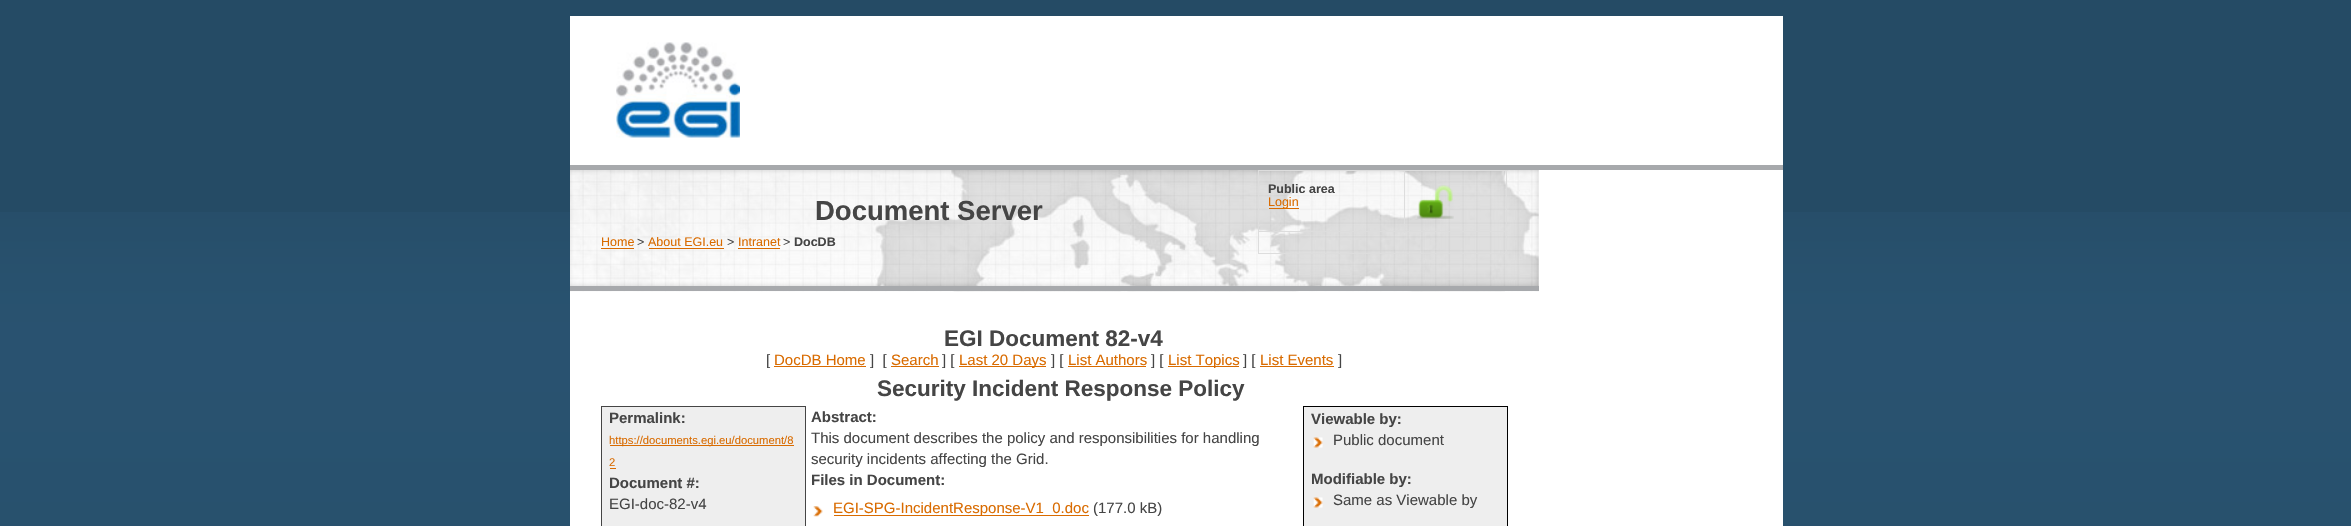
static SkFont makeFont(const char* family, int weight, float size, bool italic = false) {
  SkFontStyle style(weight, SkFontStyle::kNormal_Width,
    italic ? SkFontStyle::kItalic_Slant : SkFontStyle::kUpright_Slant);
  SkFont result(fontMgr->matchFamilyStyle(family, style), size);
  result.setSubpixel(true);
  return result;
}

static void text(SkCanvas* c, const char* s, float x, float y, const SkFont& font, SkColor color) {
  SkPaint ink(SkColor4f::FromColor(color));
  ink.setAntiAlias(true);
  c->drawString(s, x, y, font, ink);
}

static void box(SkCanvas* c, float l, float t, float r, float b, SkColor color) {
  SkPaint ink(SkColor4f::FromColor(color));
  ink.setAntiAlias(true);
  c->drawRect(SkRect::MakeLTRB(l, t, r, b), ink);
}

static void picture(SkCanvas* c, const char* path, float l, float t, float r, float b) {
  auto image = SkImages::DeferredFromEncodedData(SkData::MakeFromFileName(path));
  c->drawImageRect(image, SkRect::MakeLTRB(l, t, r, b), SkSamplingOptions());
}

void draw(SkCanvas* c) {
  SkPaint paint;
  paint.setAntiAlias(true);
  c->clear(0xff254b65);
  picture(c, "img_01.png", 0, 212, 2351, 526);
  box(c, 570, 16, 1783, 526, 0xffffffff);
  box(c, 570, 165, 1783, 170, 0xffa7a9ac);
  picture(c, "img_02.png", 616, 42, 740, 138);
  picture(c, "img_03.png", 570, 170, 1539, 292);
  box(c, 570, 286, 1539, 291, 0xffa7a9ac);
  SkFont face1 = makeFont("Liberation Sans", 700, 27.5f);
  text(c, "Document Server", 815, 220, face1, 0xff454545);
  box(c, 1404, 170, 1508, 171, 0xffdddddd);
  box(c, 1258, 231, 1508, 232, 0xffdddddd);
  box(c, 1404, 170, 1405, 233, 0xffdddddd);
  box(c, 1258, 170, 1405, 171, 0xffdddddd);
  box(c, 1506, 231, 1507, 254, 0xffdddddd);
  box(c, 1258, 253, 1508, 254, 0xffdddddd);
  box(c, 1258, 231, 1259, 254, 0xffdddddd);
  box(c, 1258, 170, 1259, 233, 0xffdddddd);
  SkFont face2 = makeFont("Liberation Sans", 700, 12.5f);
  text(c, "Public area", 1268, 193, face2, 0xff454545);
  box(c, 1269, 208, 1299, 209, 0xffd96b00);
  SkFont face3 = makeFont("Liberation Sans", 400, 12.5f);
  text(c, "Login", 1268, 206, face3, 0xffd96b00);
  box(c, 1506, 170, 1507, 224, 0xffdddddd);
  picture(c, "img_04.png", 1417, 185, 1454, 219);
  text(c, "Home", 601, 246, face3, 0xffd96b00);
  box(c, 601, 248, 634, 249, 0xffd96b00);
  text(c, ">", 637, 246, face3, 0xff454545);
  text(c, "About EGI.eu", 648, 246, face3, 0xffd96b00);
  box(c, 649, 248, 724, 249, 0xffd96b00);
  text(c, ">", 727, 246, face3, 0xff454545);
  text(c, "Intranet", 738, 246, face3, 0xffd96b00);
  box(c, 738, 248, 780, 249, 0xffd96b00);
  text(c, ">", 783, 246, face3, 0xff454545);
  text(c, "DocDB", 794, 246, face2, 0xff454545);
  SkFont face4 = makeFont("Liberation Sans", 700, 22.5f);
  text(c, "EGI Document 82-v4", 944, 346, face4, 0xff454545);
  SkFont face5 = makeFont("Liberation Sans", 400, 15);
  text(c, "[", 766, 365, face5, 0xff454545);
  text(c, "DocDB Home", 774, 365, face5, 0xffd96b00);
  box(c, 774, 366, 866, 367, 0xffd96b00);
  text(c, "]  [", 870, 365, face5, 0xff454545);
  text(c, "Search", 891, 365, face5, 0xffd96b00);
  box(c, 891, 366, 939, 367, 0xffd96b00);
  text(c, "] [", 942, 365, face5, 0xff454545);
  box(c, 959, 366, 1046, 367, 0xffd96b00);
  text(c, "Last 20 Days", 959, 365, face5, 0xffd96b00);
  text(c, "] [", 1051, 365, face5, 0xff454545);
  text(c, "List Authors", 1068, 365, face5, 0xffd96b00);
  box(c, 1068, 366, 1146, 367, 0xffd96b00);
  text(c, "] [", 1151, 365, face5, 0xff454545);
  box(c, 1168, 366, 1239, 367, 0xffd96b00);
  text(c, "List Topics", 1168, 365, face5, 0xffd96b00);
  text(c, "] [", 1243, 365, face5, 0xff454545);
  text(c, "List Events", 1260, 365, face5, 0xffd96b00);
  box(c, 1260, 366, 1334, 367, 0xffd96b00);
  text(c, "]", 1338, 365, face5, 0xff454545);
  text(c, "Security Incident Response Policy", 877, 396, face4, 0xff454545);
  paint.setColor(0xffeeeeee);
  c->drawRect(SkRect::MakeLTRB(601.5f, 406.5f, 805.5f, 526.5f), paint);
  paint.setStyle(SkPaint::kStroke_Style);
  paint.setStrokeWidth(1);
  paint.setColor(0xff454545);
  c->drawRect(SkRect::MakeLTRB(601.5f, 406.5f, 805.5f, 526.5f), paint);
  SkFont face6 = makeFont("Liberation Sans", 700, 15);
  text(c, "Permalink:", 609, 423, face6, 0xff454545);
  box(c, 610, 445, 794, 446, 0xffd96b00);
  SkFont face7 = makeFont("Liberation Sans", 400, 11.25f);
  text(c, "https://documents.egi.eu/document/8", 609, 444, face7, 0xffd96b00);
  text(c, "2", 609, 466, face7, 0xffd96b00);
  box(c, 610, 468, 616, 469, 0xffd96b00);
  text(c, "Document #:", 609, 488, face6, 0xff454545);
  text(c, "EGI-doc-82-v4", 609, 509, face5, 0xff454545);
  text(c, "Abstract:", 811, 422, face6, 0xff454545);
  text(c, "This document describes the policy and responsibilities for handling", 811, 443, face5, 0xff454545);
  text(c, "security incidents affecting the Grid.", 811, 464, face5, 0xff454545);
  paint.setStyle(SkPaint::kFill_Style);
  paint.setColor(0xffeeeeee);
  c->drawRect(SkRect::MakeLTRB(1303.5f, 406.5f, 1507.5f, 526.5f), paint);
  paint.setStyle(SkPaint::kStroke_Style);
  paint.setColor(0xff000000);
  c->drawRect(SkRect::MakeLTRB(1303.5f, 406.5f, 1507.5f, 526.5f), paint);
  text(c, "Viewable by:", 1311, 424, face6, 0xff454545);
  picture(c, "img_05.png", 1313, 437, 1323, 448);
  text(c, "Public document", 1333, 445, face5, 0xff454545);
  text(c, "Modifiable by:", 1311, 484, face6, 0xff454545);
  picture(c, "img_05.png", 1313, 497, 1323, 508);
  text(c, "Same as Viewable by", 1333, 505, face5, 0xff454545);
  text(c, "Files in Document:", 811, 485, face6, 0xff454545);
  picture(c, "img_06.png", 813, 506, 823, 517);
  box(c, 834, 515, 1089, 516, 0xffd96b00);
  text(c, "EGI-SPG-IncidentResponse-V1_0.doc", 833, 513, face5, 0xffd96b00);
  text(c, "(177.0 kB)", 1093, 513, face5, 0xff454545);
}
